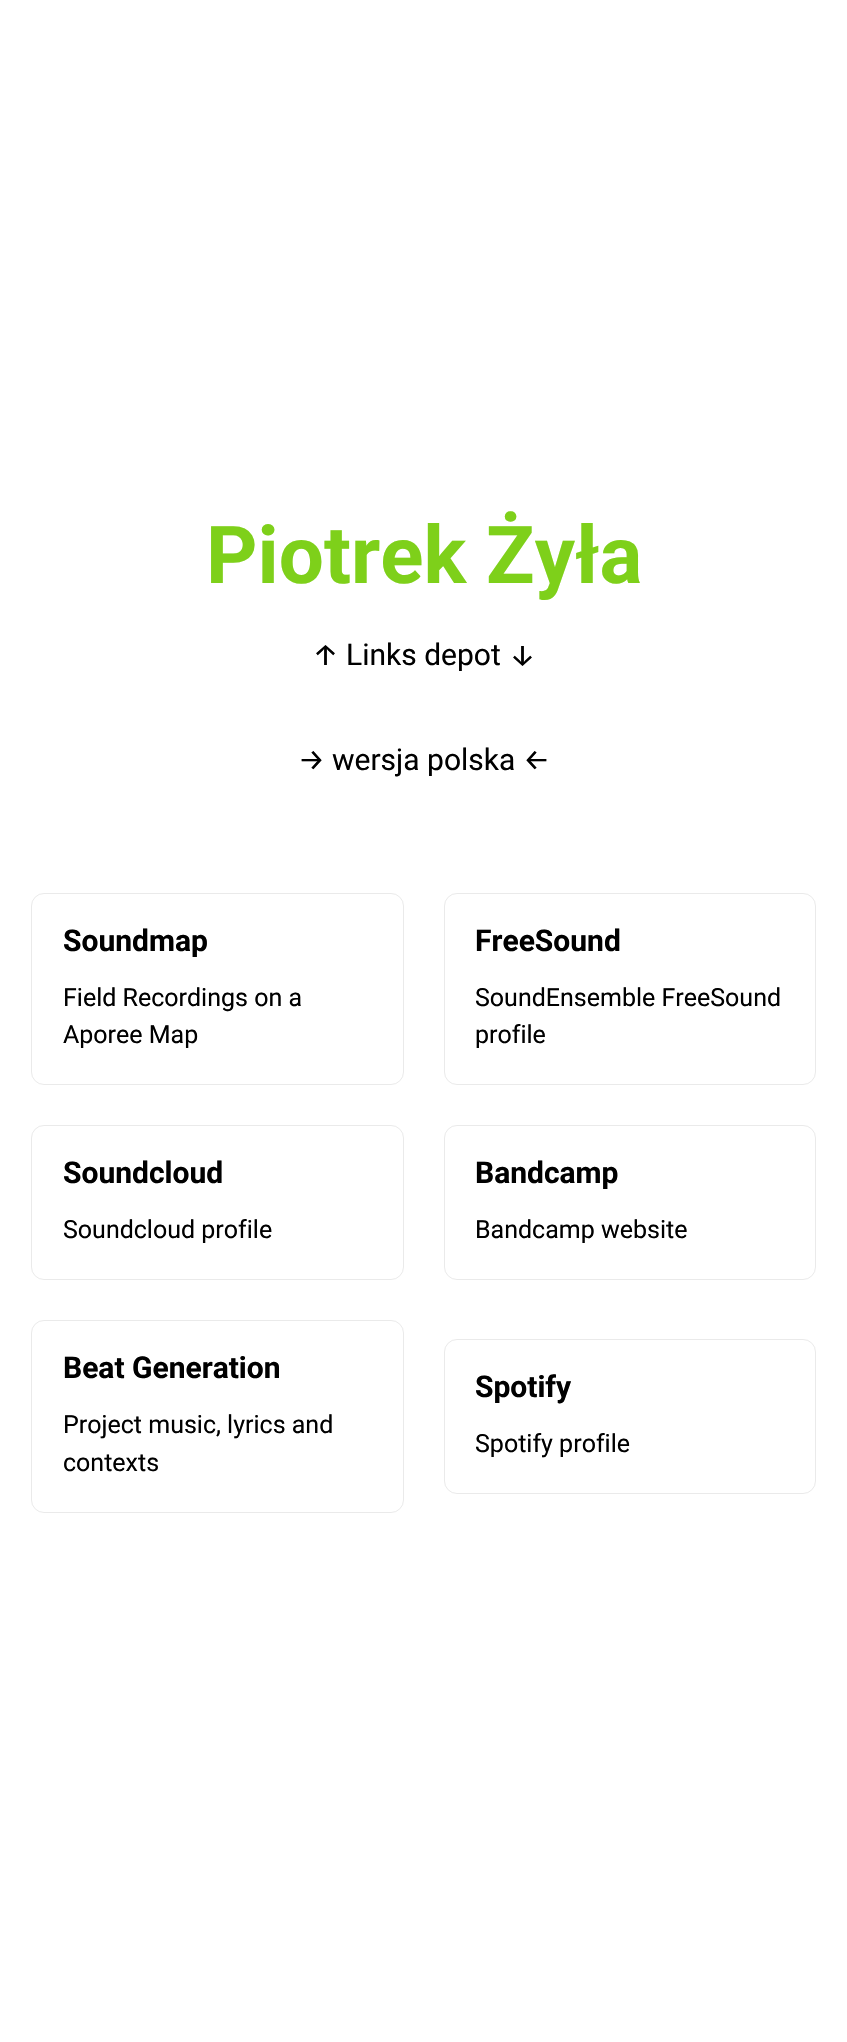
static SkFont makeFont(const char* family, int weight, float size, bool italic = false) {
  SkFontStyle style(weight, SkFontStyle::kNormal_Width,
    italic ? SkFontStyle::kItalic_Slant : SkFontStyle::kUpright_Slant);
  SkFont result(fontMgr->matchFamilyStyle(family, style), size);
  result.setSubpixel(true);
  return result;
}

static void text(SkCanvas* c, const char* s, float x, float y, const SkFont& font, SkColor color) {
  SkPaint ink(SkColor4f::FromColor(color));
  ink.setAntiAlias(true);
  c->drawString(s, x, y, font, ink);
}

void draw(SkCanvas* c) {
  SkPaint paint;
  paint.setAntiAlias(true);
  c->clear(0xffffffff);
  SkFont face1 = makeFont("Roboto", 700, 80);
  text(c, "Piotrek Żyła", 206, 583, face1, 0xff7ed01a);
  SkFont face2 = makeFont("Fira Sans", 400, 30);
  text(c, "↑", 312, 665, face2, 0xff000000);
  SkFont face3 = makeFont("Roboto", 400, 30);
  text(c, "Links depot", 346, 665, face3, 0xff000000);
  text(c, "↓", 509, 665, face2, 0xff000000);
  text(c, "→", 298, 770, face2, 0xff000000);
  text(c, "wersja polska", 332, 770, face3, 0xff000000);
  text(c, "←", 523, 770, face2, 0xff000000);
  paint.setStyle(SkPaint::kStroke_Style);
  paint.setStrokeWidth(1);
  paint.setColor(0xffeaeaea);
  c->drawRoundRect(SkRect::MakeLTRB(31.5f, 893.5f, 403.5f, 1084.5f), 12.5f, 12.5f, paint);
  SkFont face4 = makeFont("Roboto", 700, 30);
  text(c, "Soundmap", 63, 951, face4, 0xff000000);
  SkFont face5 = makeFont("Roboto", 400, 25);
  text(c, "Field Recordings on a", 63, 1006, face5, 0xff000000);
  text(c, "Aporee Map", 63, 1043, face5, 0xff000000);
  c->drawRoundRect(SkRect::MakeLTRB(444.5f, 893.5f, 815.5f, 1084.5f), 12.5f, 12.5f, paint);
  text(c, "FreeSound", 475, 951, face4, 0xff000000);
  text(c, "SoundEnsemble FreeSound", 475, 1006, face5, 0xff000000);
  text(c, "profile", 475, 1043, face5, 0xff000000);
  c->drawRoundRect(SkRect::MakeLTRB(31.5f, 1125.5f, 403.5f, 1279.5f), 12.5f, 12.5f, paint);
  text(c, "Soundcloud", 63, 1183, face4, 0xff000000);
  text(c, "Soundcloud profile", 63, 1238, face5, 0xff000000);
  c->drawRoundRect(SkRect::MakeLTRB(444.5f, 1125.5f, 815.5f, 1279.5f), 12.5f, 12.5f, paint);
  text(c, "Bandcamp", 475, 1183, face4, 0xff000000);
  text(c, "Bandcamp website", 475, 1238, face5, 0xff000000);
  c->drawRoundRect(SkRect::MakeLTRB(31.5f, 1320.5f, 403.5f, 1512.5f), 12.5f, 12.5f, paint);
  text(c, "Beat Generation", 63, 1378, face4, 0xff000000);
  text(c, "Project music, lyrics and", 63, 1433, face5, 0xff000000);
  text(c, "contexts", 63, 1471, face5, 0xff000000);
  c->drawRoundRect(SkRect::MakeLTRB(444.5f, 1339.5f, 815.5f, 1493.5f), 12.5f, 12.5f, paint);
  text(c, "Spotify", 475, 1397, face4, 0xff000000);
  text(c, "Spotify profile", 475, 1452, face5, 0xff000000);
}
